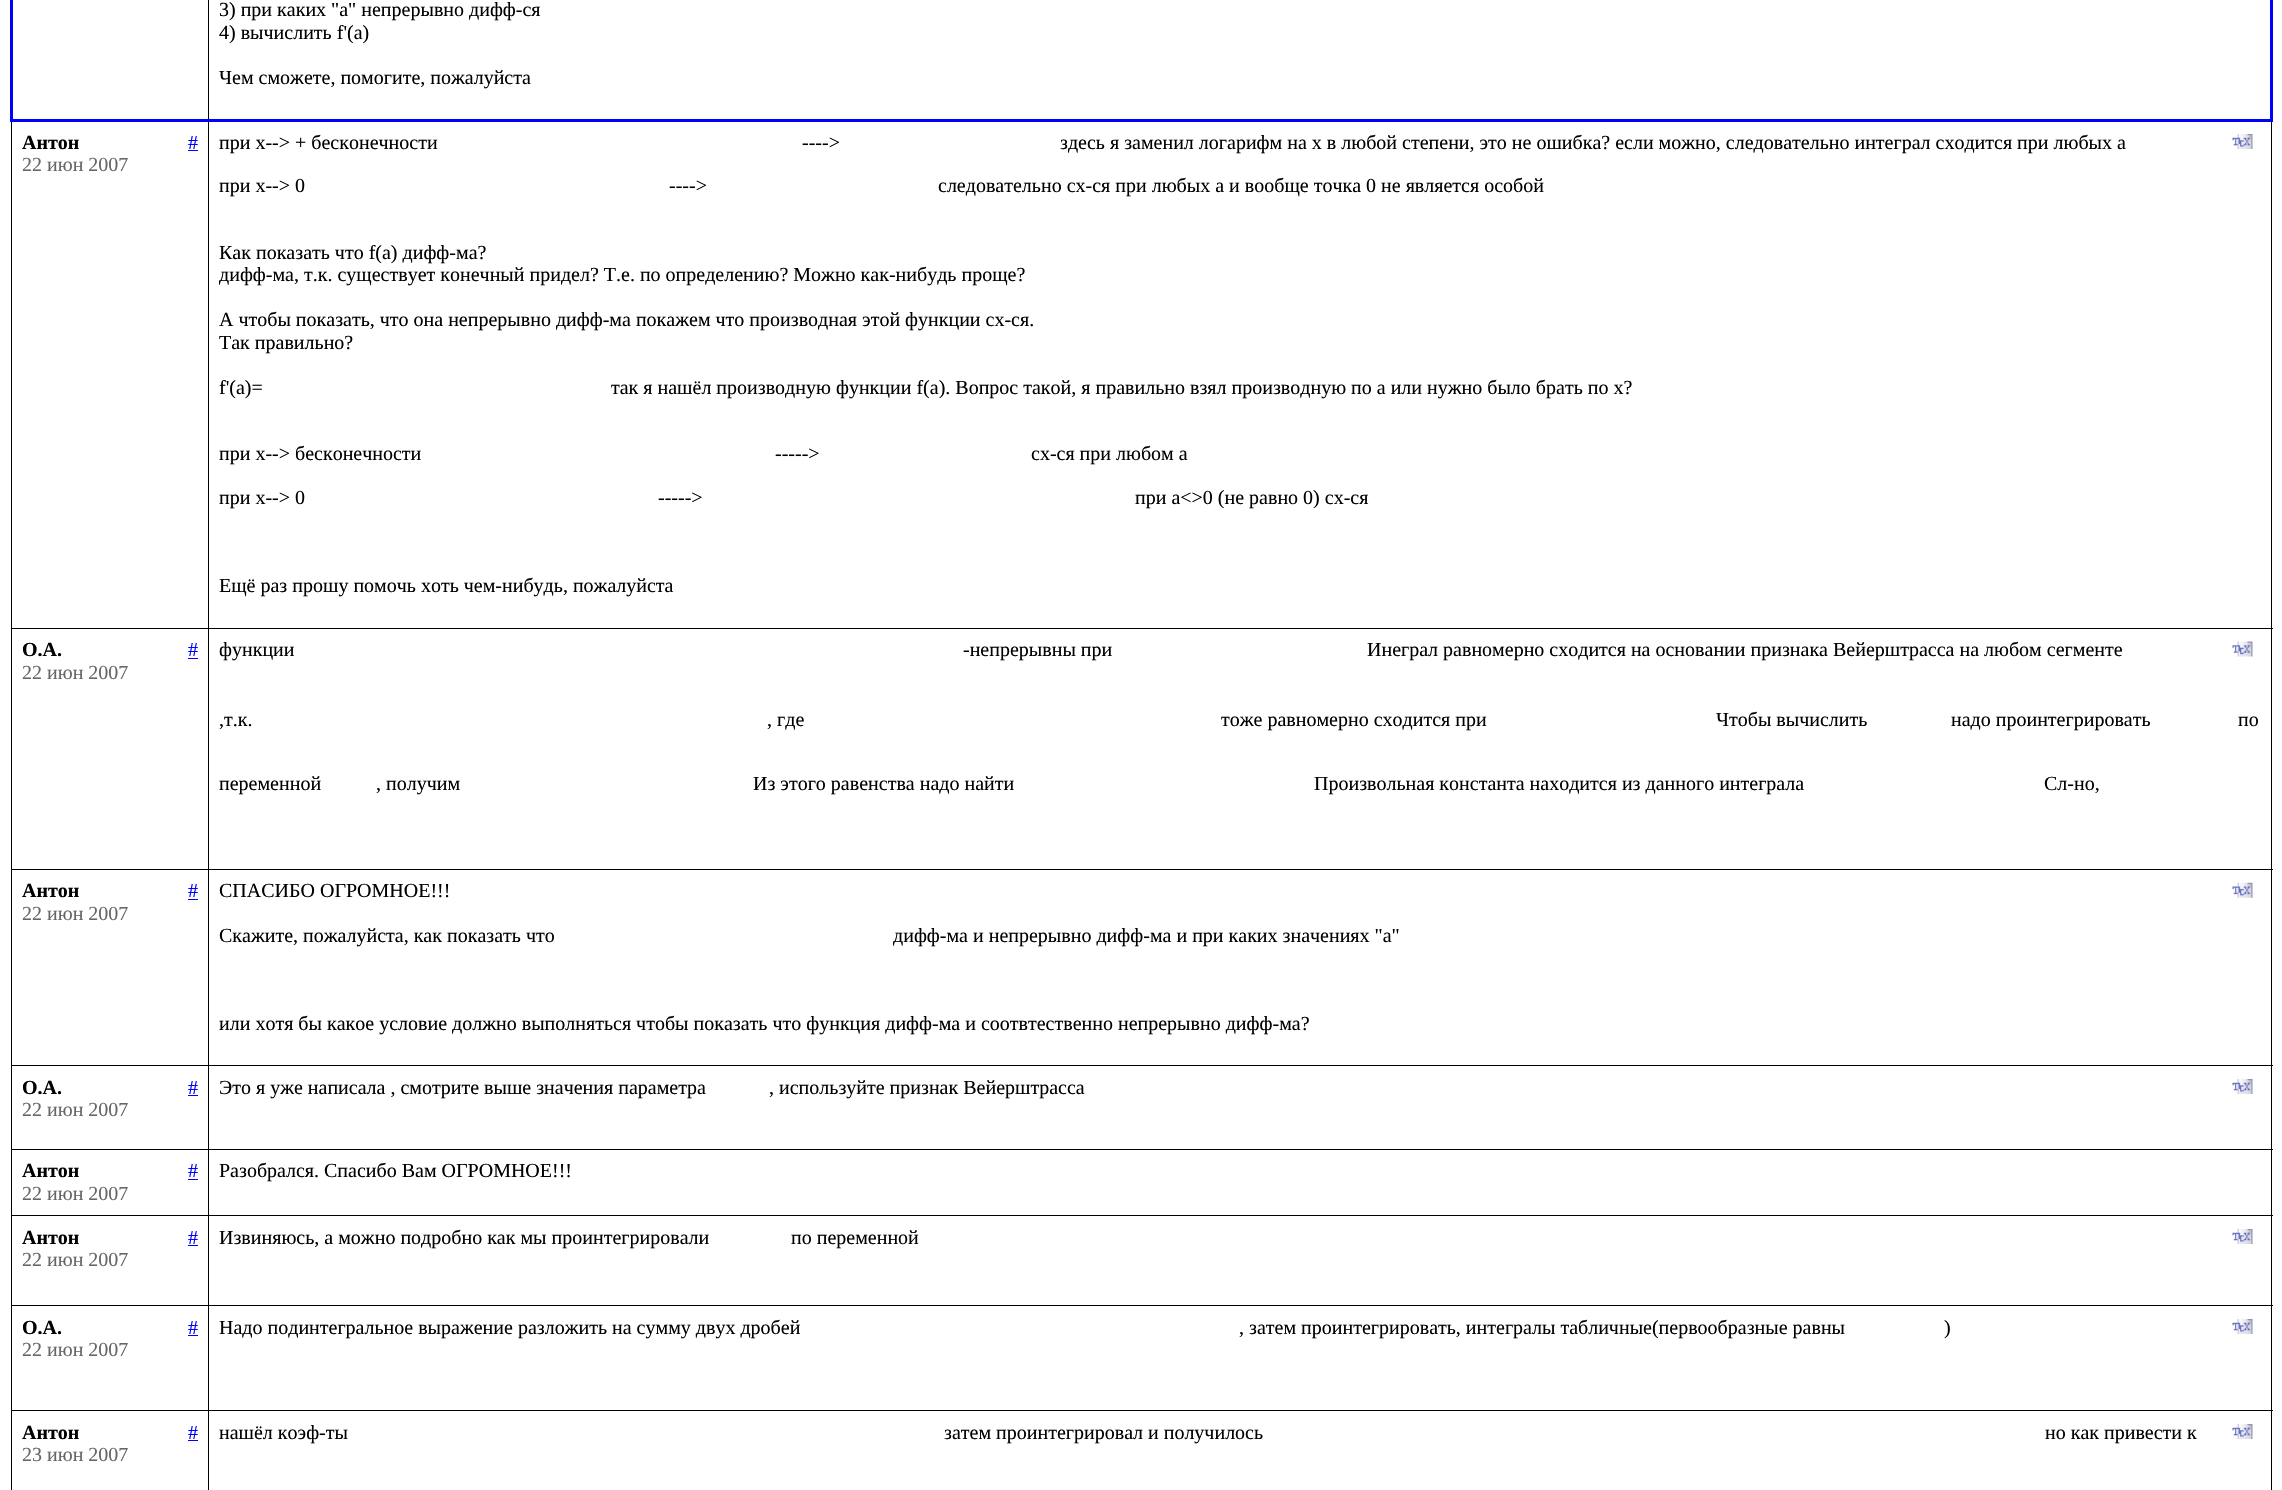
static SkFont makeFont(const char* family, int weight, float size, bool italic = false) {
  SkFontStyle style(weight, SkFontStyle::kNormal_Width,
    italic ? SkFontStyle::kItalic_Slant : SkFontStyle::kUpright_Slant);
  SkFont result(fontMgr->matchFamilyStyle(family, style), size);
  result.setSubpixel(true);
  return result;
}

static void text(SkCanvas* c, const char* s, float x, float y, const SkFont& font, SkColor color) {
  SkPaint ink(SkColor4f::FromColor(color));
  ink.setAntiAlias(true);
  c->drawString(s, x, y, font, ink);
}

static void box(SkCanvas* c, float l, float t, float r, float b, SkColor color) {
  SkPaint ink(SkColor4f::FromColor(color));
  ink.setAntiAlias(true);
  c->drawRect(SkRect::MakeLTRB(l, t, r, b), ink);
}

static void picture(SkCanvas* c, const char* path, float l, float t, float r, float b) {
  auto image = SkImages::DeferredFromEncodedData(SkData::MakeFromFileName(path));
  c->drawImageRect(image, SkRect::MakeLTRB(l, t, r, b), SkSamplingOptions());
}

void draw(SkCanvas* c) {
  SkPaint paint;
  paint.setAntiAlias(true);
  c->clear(0xffffffff);
  box(c, 208, 628, 2273, 629, 0xff000000);
  box(c, 208, 869, 2273, 870, 0xff000000);
  box(c, 208, 1065, 2273, 1066, 0xff000000);
  box(c, 208, 1149, 2273, 1150, 0xff000000);
  box(c, 208, 1215, 2273, 1216, 0xff000000);
  box(c, 208, 1305, 2273, 1306, 0xff000000);
  box(c, 208, 1410, 2273, 1411, 0xff000000);
  box(c, 2271, 1410, 2272, 1490, 0xff000000);
  box(c, 2271, 1305, 2272, 1411, 0xff000000);
  box(c, 2271, 1215, 2272, 1306, 0xff000000);
  box(c, 2271, 1149, 2272, 1216, 0xff000000);
  box(c, 2271, 1065, 2272, 1150, 0xff000000);
  box(c, 2271, 869, 2272, 1066, 0xff000000);
  box(c, 2271, 119, 2272, 870, 0xff000000);
  box(c, 2270, 0, 2273, 121, 0xff0000ff);
  box(c, 208, 1410, 209, 1490, 0xff000000);
  box(c, 11, 1410, 209, 1411, 0xff000000);
  box(c, 208, 1305, 209, 1411, 0xff000000);
  box(c, 11, 1305, 209, 1306, 0xff000000);
  box(c, 208, 1215, 209, 1306, 0xff000000);
  box(c, 11, 1215, 209, 1216, 0xff000000);
  box(c, 208, 1149, 209, 1216, 0xff000000);
  box(c, 11, 1149, 209, 1150, 0xff000000);
  box(c, 208, 1065, 209, 1150, 0xff000000);
  box(c, 11, 1065, 209, 1066, 0xff000000);
  box(c, 208, 869, 209, 1066, 0xff000000);
  box(c, 11, 869, 209, 870, 0xff000000);
  box(c, 208, 628, 209, 870, 0xff000000);
  box(c, 11, 628, 209, 629, 0xff000000);
  box(c, 208, 0, 209, 629, 0xff000000);
  box(c, 11, 1410, 12, 1490, 0xff000000);
  box(c, 11, 1305, 12, 1411, 0xff000000);
  box(c, 11, 1215, 12, 1306, 0xff000000);
  box(c, 11, 1149, 12, 1216, 0xff000000);
  box(c, 11, 1065, 12, 1150, 0xff000000);
  box(c, 11, 869, 12, 1066, 0xff000000);
  box(c, 11, 119, 12, 870, 0xff000000);
  box(c, 10, 119, 2273, 122, 0xff0000ff);
  box(c, 10, 0, 13, 121, 0xff0000ff);
  SkFont face1 = makeFont("Liberation Serif", 400, 20);
  text(c, "3) при каких \"а\" непрерывно дифф-ся", 219, 16, face1, 0xff000000);
  text(c, "4) вычислить f'(a)", 219, 39, face1, 0xff000000);
  text(c, "Чем сможете, помогите, пожалуйста", 219, 84, face1, 0xff000000);
  SkFont face2 = makeFont("Liberation Serif", 700, 20);
  text(c, "Антон", 22, 149, face2, 0xff000000);
  text(c, "#", 188, 149, face1, 0xff0000ff);
  box(c, 188, 150, 198, 151, 0xff0000ff);
  text(c, "22 июн 2007", 22, 171, face1, 0xff666666);
  text(c, "при x--> + бесконечности", 219, 149, face1, 0xff000000);
  text(c, "---->", 802, 149, face1, 0xff000000);
  text(c, "здесь я заменил логарифм на х в любой степени, это не ошибка? если можно, cледовательно интеграл сходится при любых а", 1060, 149, face1, 0xff000000);
  text(c, "при х--> 0", 219, 192, face1, 0xff000000);
  text(c, "---->", 669, 192, face1, 0xff000000);
  text(c, "cледовательно сх-ся при любых а и вообще точка 0 не является особой", 938, 192, face1, 0xff000000);
  text(c, "Как показать что f(a) дифф-ма?", 219, 259, face1, 0xff000000);
  text(c, "дифф-ма, т.к. существует конечный придел? Т.е. по определению? Можно как-нибудь проще?", 219, 281, face1, 0xff000000);
  text(c, "А чтобы показать, что она непрерывно дифф-ма покажем что производная этой функции сх-ся.", 219, 326, face1, 0xff000000);
  text(c, "Так правильно?", 219, 349, face1, 0xff000000);
  text(c, "f'(a)=", 219, 394, face1, 0xff000000);
  text(c, "так я нашёл производную функции f(a). Вопрос такой, я правильно взял производную по a или нужно было брать по x?", 611, 394, face1, 0xff000000);
  text(c, "при x--> бесконечности", 219, 460, face1, 0xff000000);
  text(c, "----->", 775, 460, face1, 0xff000000);
  text(c, "сх-ся при любом а", 1031, 460, face1, 0xff000000);
  text(c, "при х--> 0", 219, 504, face1, 0xff000000);
  text(c, "----->", 658, 504, face1, 0xff000000);
  text(c, "при a<>0 (не равно 0) сх-ся", 1135, 504, face1, 0xff000000);
  text(c, "Ещё раз прошу помочь хоть чем-нибудь, пожалуйста", 219, 592, face1, 0xff000000);
  picture(c, "img_01.png", 2232, 134, 2253, 149);
  text(c, "О.А.", 22, 656, face2, 0xff000000);
  text(c, "#", 188, 656, face1, 0xff0000ff);
  box(c, 188, 658, 198, 659, 0xff0000ff);
  text(c, "22 июн 2007", 22, 679, face1, 0xff666666);
  text(c, "функции", 219, 656, face1, 0xff000000);
  text(c, "-непрерывны при", 963, 656, face1, 0xff000000);
  text(c, "Инеграл равномерно сходится на основании признака Вейерштрасса на любом сегменте", 1367, 656, face1, 0xff000000);
  text(c, ",т.к.", 219, 726, face1, 0xff000000);
  text(c, ", где", 767, 726, face1, 0xff000000);
  text(c, "тоже равномерно сходится при", 1221, 726, face1, 0xff000000);
  text(c, "Чтобы вычислить", 1716, 726, face1, 0xff000000);
  text(c, "надо проинтегрировать", 1951, 726, face1, 0xff000000);
  text(c, "по", 2238, 726, face1, 0xff000000);
  text(c, "переменной", 219, 790, face1, 0xff000000);
  text(c, ", получим", 376, 790, face1, 0xff000000);
  text(c, "Из этого равенства надо найти", 753, 790, face1, 0xff000000);
  text(c, "Произвольная константа находится из данного интеграла", 1314, 790, face1, 0xff000000);
  text(c, "Сл-но,", 2044, 790, face1, 0xff000000);
  picture(c, "img_02.png", 2232, 641, 2253, 657);
  text(c, "Антон", 22, 897, face2, 0xff000000);
  text(c, "#", 188, 897, face1, 0xff0000ff);
  box(c, 188, 899, 198, 900, 0xff0000ff);
  text(c, "22 июн 2007", 22, 920, face1, 0xff666666);
  text(c, "СПАСИБО ОГРОМНОЕ!!!", 219, 897, face1, 0xff000000);
  text(c, "Скажите, пожалуйста, как показать что", 219, 942, face1, 0xff000000);
  text(c, "дифф-ма и непрерывно дифф-ма и при каких значениях \"а\"", 893, 942, face1, 0xff000000);
  text(c, "или хотя бы какое условие должно выполняться чтобы показать что функция дифф-ма и соотвтественно непрерывно дифф-ма?", 219, 1030, face1, 0xff000000);
  picture(c, "img_03.png", 2232, 882, 2253, 898);
  text(c, "О.А.", 22, 1094, face2, 0xff000000);
  text(c, "#", 188, 1094, face1, 0xff0000ff);
  box(c, 188, 1095, 198, 1096, 0xff0000ff);
  text(c, "22 июн 2007", 22, 1116, face1, 0xff666666);
  text(c, "Это я уже написала , смотрите выше значения параметра", 219, 1094, face1, 0xff000000);
  text(c, ", используйте признак Вейерштрасса", 769, 1094, face1, 0xff000000);
  picture(c, "img_01.png", 2232, 1079, 2253, 1094);
  text(c, "Антон", 22, 1177, face2, 0xff000000);
  text(c, "#", 188, 1177, face1, 0xff0000ff);
  box(c, 188, 1179, 198, 1180, 0xff0000ff);
  text(c, "22 июн 2007", 22, 1200, face1, 0xff666666);
  text(c, "Разобрался. Спасибо Вам ОГРОМНОЕ!!!", 219, 1177, face1, 0xff000000);
  text(c, "Антон", 22, 1244, face2, 0xff000000);
  text(c, "#", 188, 1244, face1, 0xff0000ff);
  box(c, 188, 1245, 198, 1246, 0xff0000ff);
  text(c, "22 июн 2007", 22, 1266, face1, 0xff666666);
  text(c, "Извиняюсь, а можно подробно как мы проинтегрировали", 219, 1244, face1, 0xff000000);
  text(c, "по переменной", 791, 1244, face1, 0xff000000);
  picture(c, "img_01.png", 2232, 1229, 2253, 1244);
  text(c, "О.А.", 22, 1334, face2, 0xff000000);
  text(c, "#", 188, 1334, face1, 0xff0000ff);
  box(c, 188, 1335, 198, 1336, 0xff0000ff);
  text(c, "22 июн 2007", 22, 1356, face1, 0xff666666);
  text(c, "Надо подинтегральное выражение разложить на сумму двух дробей", 219, 1334, face1, 0xff000000);
  text(c, ", затем проинтегрировать, интегралы табличные(первообразные равны", 1239, 1334, face1, 0xff000000);
  text(c, ")", 1944, 1334, face1, 0xff000000);
  picture(c, "img_01.png", 2232, 1319, 2253, 1334);
  text(c, "Антон", 22, 1439, face2, 0xff000000);
  text(c, "#", 188, 1439, face1, 0xff0000ff);
  box(c, 188, 1440, 198, 1441, 0xff0000ff);
  text(c, "23 июн 2007", 22, 1461, face1, 0xff666666);
  text(c, "нашёл коэф-ты", 219, 1439, face1, 0xff000000);
  text(c, "затем проинтегрировал и получилось", 944, 1439, face1, 0xff000000);
  text(c, "но как привести к", 2045, 1439, face1, 0xff000000);
  picture(c, "img_01.png", 2232, 1424, 2253, 1439);
}
